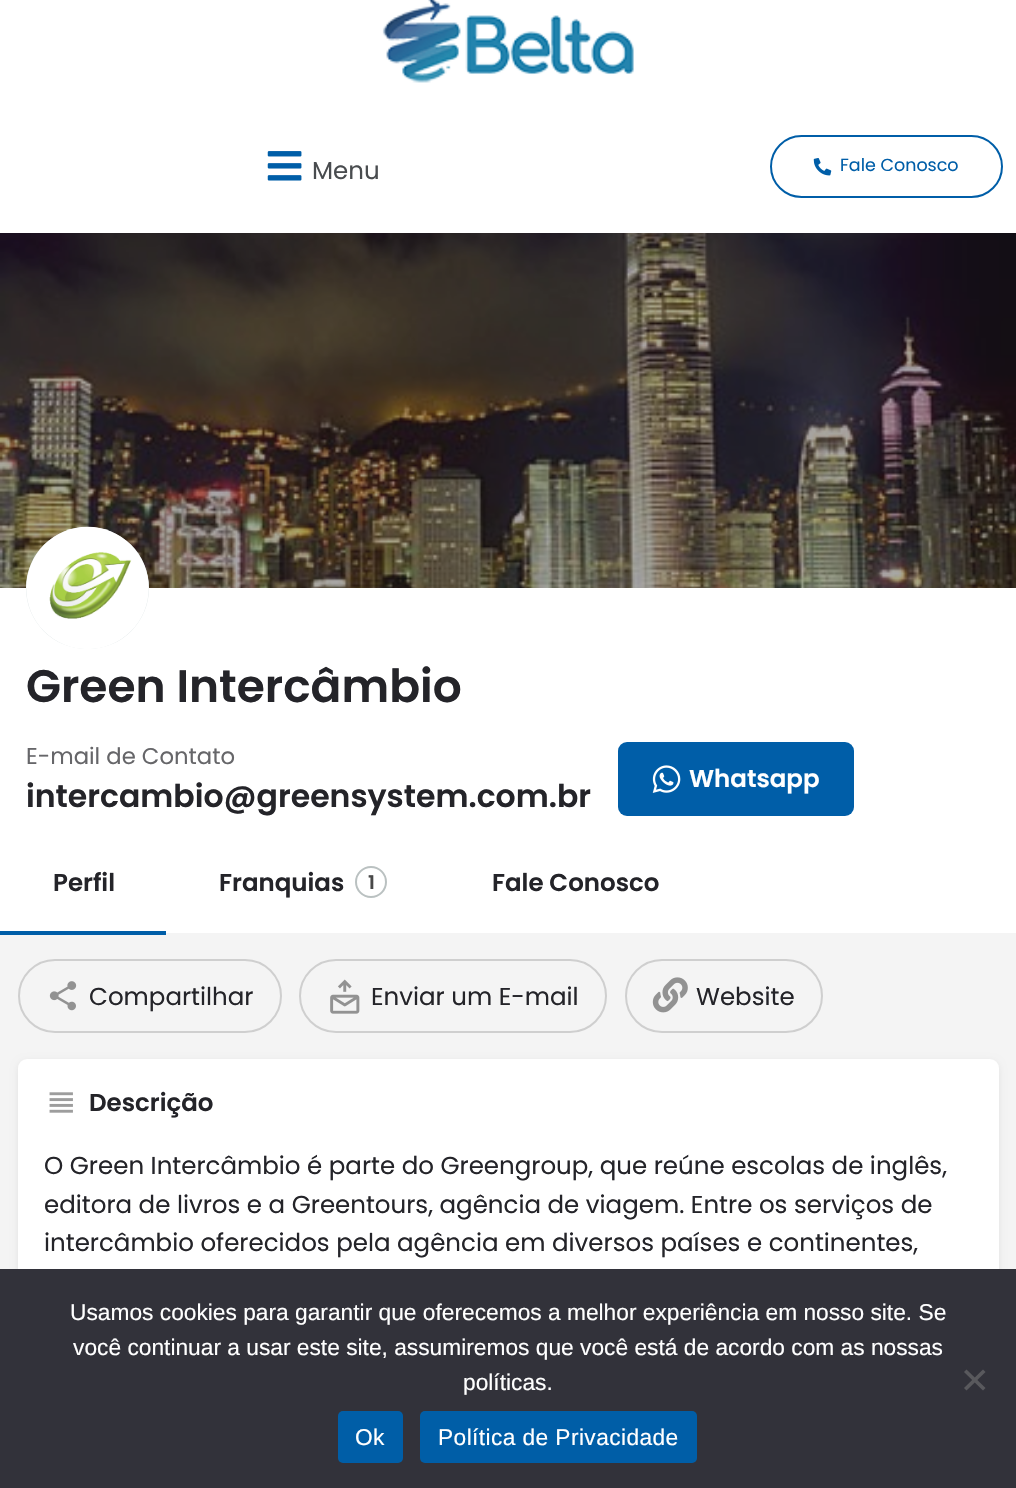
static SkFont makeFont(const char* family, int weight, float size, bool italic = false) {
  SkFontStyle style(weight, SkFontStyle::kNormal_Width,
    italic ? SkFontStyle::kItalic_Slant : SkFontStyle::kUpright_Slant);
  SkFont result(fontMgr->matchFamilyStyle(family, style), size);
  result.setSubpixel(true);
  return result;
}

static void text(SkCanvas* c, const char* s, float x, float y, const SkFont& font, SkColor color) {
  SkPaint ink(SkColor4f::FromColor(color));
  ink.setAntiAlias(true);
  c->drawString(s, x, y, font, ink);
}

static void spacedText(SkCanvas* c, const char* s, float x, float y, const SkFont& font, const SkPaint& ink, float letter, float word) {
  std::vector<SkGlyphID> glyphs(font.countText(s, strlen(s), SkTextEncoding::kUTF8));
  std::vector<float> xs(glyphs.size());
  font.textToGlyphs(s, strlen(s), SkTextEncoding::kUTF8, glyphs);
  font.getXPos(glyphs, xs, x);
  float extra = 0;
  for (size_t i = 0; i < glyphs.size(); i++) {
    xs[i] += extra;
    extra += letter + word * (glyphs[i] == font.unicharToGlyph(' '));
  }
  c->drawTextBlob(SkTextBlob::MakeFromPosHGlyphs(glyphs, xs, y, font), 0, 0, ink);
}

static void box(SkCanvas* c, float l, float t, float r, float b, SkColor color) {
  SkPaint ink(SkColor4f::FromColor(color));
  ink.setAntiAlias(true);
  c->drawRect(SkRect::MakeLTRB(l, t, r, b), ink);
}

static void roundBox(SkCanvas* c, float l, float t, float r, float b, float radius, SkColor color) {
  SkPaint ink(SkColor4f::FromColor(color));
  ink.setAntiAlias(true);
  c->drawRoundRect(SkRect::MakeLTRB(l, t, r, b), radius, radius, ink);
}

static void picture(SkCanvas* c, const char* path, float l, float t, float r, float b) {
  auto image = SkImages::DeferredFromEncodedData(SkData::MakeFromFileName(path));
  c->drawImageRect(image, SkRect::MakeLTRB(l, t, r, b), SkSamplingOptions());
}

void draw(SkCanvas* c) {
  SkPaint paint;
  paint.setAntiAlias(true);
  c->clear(0xfff4f4f4);
  box(c, 0, 0, 1016, 233, 0xffffffff);
  picture(c, "img_01.png", 382, 0, 634, 83);
  picture(c, "img_02.png", 267, 151, 302, 181);
  SkFont face1 = makeFont("Poppins", 400, 24.5f);
  text(c, "Menu", 312, 179, face1, 0xff494c4f);
  paint.setStyle(SkPaint::kStroke_Style);
  paint.setStrokeWidth(2);
  paint.setColor(0xff005ea8);
  c->drawRoundRect(SkRect::MakeLTRB(771, 136, 1002, 197), 30.5f, 30.5f, paint);
  picture(c, "img_03.png", 813, 158, 832, 176);
  SkFont face2 = makeFont("Poppins", 400, 17.5f);
  text(c, "Fale Conosco", 840, 171, face2, 0xff005ea8);
  picture(c, "img_04.png", 0, 233, 1016, 588);
  box(c, 0, 588, 1016, 933, 0xffffffff);
  roundBox(c, 26, 527, 149, 649, 61, 0xffdde5e6);
  picture(c, "img_05.png", 26, 526, 149, 649);
  SkFont face3 = makeFont("Poppins", 600, 45.5f);
  text(c, "Green Intercâmbio", 26, 702, face3, 0xff242429);
  SkFont face4 = makeFont("Poppins", 400, 22.75f);
  text(c, "E-mail de Contato", 26, 764, face4, 0xff666669);
  SkFont face5 = makeFont("Poppins", 600, 31.5f);
  text(c, "intercambio@greensystem.com.br", 26, 807, face5, 0xff242429);
  roundBox(c, 618, 742, 854, 816, 9, 0xff005ea8);
  picture(c, "img_06.png", 652, 765, 681, 793);
  SkFont face6 = makeFont("Poppins", 600, 24.5f);
  text(c, "Whatsapp", 689, 787, face6, 0xffffffff);
  text(c, "Perfil", 53, 891, face6, 0xff242429);
  box(c, 0, 931, 166, 935, 0xff005ea8);
  text(c, "Franquias", 219, 891, face6, 0xff242429);
  paint.setColor(0xffbac1c1);
  c->drawCircle(371, 882, 15, paint);
  SkFont face7 = makeFont("Poppins", 600, 19);
  text(c, "1", 368, 889, face7, 0xff484848);
  text(c, "Fale Conosco", 492, 891, face6, 0xff242429);
  paint.setColor(0xffcfcfcf);
  c->drawRoundRect(SkRect::MakeLTRB(19, 960, 281, 1032), 36, 36, paint);
  picture(c, "img_07.png", 49, 981, 77, 1011);
  text(c, "Compartilhar", 89, 1005, face1, 0xff242429);
  c->drawRoundRect(SkRect::MakeLTRB(300, 960, 606, 1032), 36, 36, paint);
  picture(c, "img_08.png", 330, 979, 360, 1014);
  text(c, "Enviar um E-mail", 371, 1005, face1, 0xff242429);
  c->drawRoundRect(SkRect::MakeLTRB(626, 960, 822, 1032), 36, 36, paint);
  picture(c, "img_09.png", 652, 977, 688, 1013);
  text(c, "Website", 696, 1005, face1, 0xff242429);
  paint.setStyle(SkPaint::kFill_Style);
  paint.setColor(0x12000000);
  paint.setMaskFilter(SkMaskFilter::MakeBlur(kNormal_SkBlurStyle, 3.5f));
  c->drawRoundRect(SkRect::MakeLTRB(18, 1061, 999, 1367), 9, 9, paint);
  paint.setMaskFilter(nullptr);
  roundBox(c, 18, 1059, 999, 1365, 9, 0xffffffff);
  picture(c, "img_10.png", 49, 1092, 73, 1113);
  text(c, "Descrição", 89, 1111, face6, 0xff242429);
  text(c, "O Green Intercâmbio é parte do Greengroup, que reúne escolas de inglês,", 44, 1174, face1, 0xff242429);
  text(c, "editora de livros e a Greentours, agência de viagem. Entre os serviços de", 44, 1213, face1, 0xff242429);
  text(c, "intercâmbio oferecidos pela agência em diversos países e continentes,", 44, 1251, face1, 0xff242429);
  box(c, 0, 1269, 1016, 1488, 0xff32323a);
  SkFont face8 = makeFont("Liberation Sans", 400, 22.75f);
  text(c, "Usamos cookies para garantir que oferecemos a melhor experiência em nosso site. Se", 70, 1320, face8, 0xffffffff);
  text(c, "você continuar a usar este site, assumiremos que você está de acordo com as nossas", 73, 1355, face8, 0xffffffff);
  text(c, "políticas.", 463, 1390, face8, 0xffffffff);
  paint.setColor(0xff59595d);
  c->drawPath(SkPathBuilder().moveTo(983, 1369.5f).lineTo(985.5f, 1372).lineTo(966.5f, 1390.5f).lineTo(964, 1388).close().detach(), paint);
  c->drawPath(SkPathBuilder().moveTo(964, 1372).lineTo(966.5f, 1369.5f).lineTo(985.5f, 1388).lineTo(983, 1390.5f).close().detach(), paint);
  roundBox(c, 338, 1411, 403, 1463, 5, 0xff005ea7);
  paint.setColor(0xffffffff);
  spacedText(c, "Ok", 355, 1445, face8, paint, 0.4f, 0);
  roundBox(c, 420, 1411, 697, 1463, 5, 0xff005ea7);
  spacedText(c, "Política de Privacidade", 438, 1445, face8, paint, 0.4f, 0);
}
